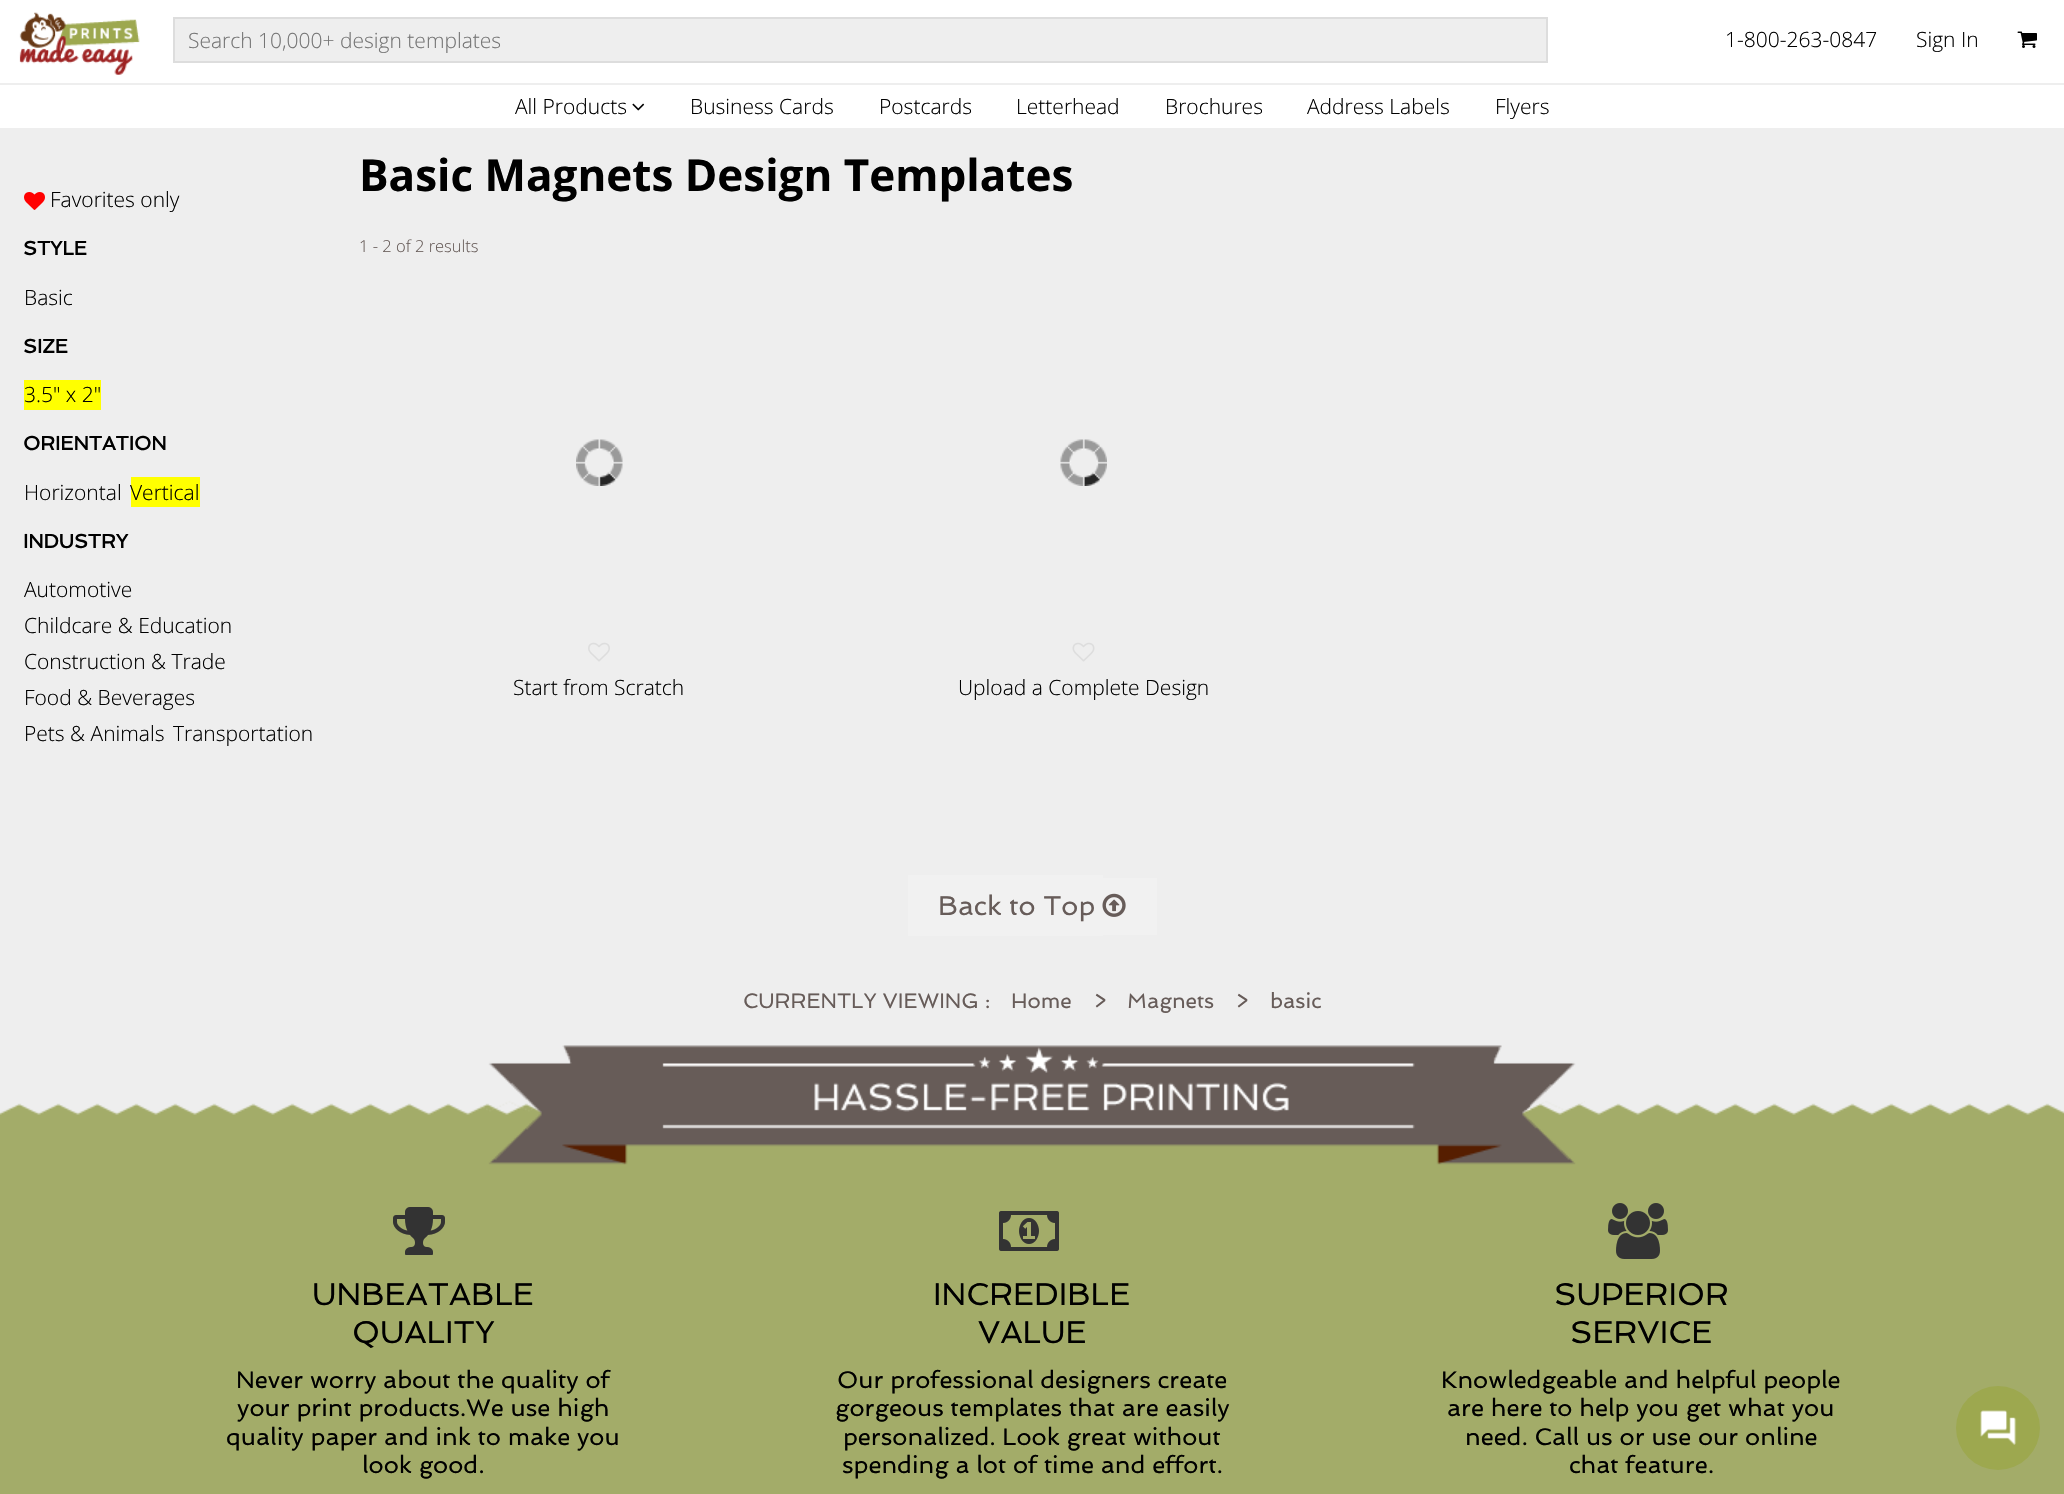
static SkFont makeFont(const char* family, int weight, float size, bool italic = false) {
  SkFontStyle style(weight, SkFontStyle::kNormal_Width,
    italic ? SkFontStyle::kItalic_Slant : SkFontStyle::kUpright_Slant);
  SkFont result(fontMgr->matchFamilyStyle(family, style), size);
  result.setSubpixel(true);
  return result;
}

static void text(SkCanvas* c, const char* s, float x, float y, const SkFont& font, SkColor color) {
  SkPaint ink(SkColor4f::FromColor(color));
  ink.setAntiAlias(true);
  c->drawString(s, x, y, font, ink);
}

static void box(SkCanvas* c, float l, float t, float r, float b, SkColor color) {
  SkPaint ink(SkColor4f::FromColor(color));
  ink.setAntiAlias(true);
  c->drawRect(SkRect::MakeLTRB(l, t, r, b), ink);
}

static void picture(SkCanvas* c, const char* path, float l, float t, float r, float b) {
  auto image = SkImages::DeferredFromEncodedData(SkData::MakeFromFileName(path));
  c->drawImageRect(image, SkRect::MakeLTRB(l, t, r, b), SkSamplingOptions());
}

void draw(SkCanvas* c) {
  SkPaint paint;
  paint.setAntiAlias(true);
  c->clear(0xffeeeeee);
  box(c, 0, 0, 2064, 83, 0xffffffff);
  picture(c, "img_01.png", 19, 12, 140, 75);
  paint.setColor(0xffeeeeee);
  c->drawRect(SkRect::MakeLTRB(174, 18, 1547, 62), paint);
  paint.setStyle(SkPaint::kStroke_Style);
  paint.setStrokeWidth(2);
  paint.setColor(0xffdddddd);
  c->drawRect(SkRect::MakeLTRB(174, 18, 1547, 62), paint);
  SkFont face1 = makeFont("Open Sans", 300, 21);
  text(c, "Search 10,000+ design templates", 188, 48, face1, 0xff757575);
  text(c, "1-800-263-0847", 1725, 47, face1, 0xff000000);
  text(c, "Sign In", 1916, 47, face1, 0xff000000);
  picture(c, "img_02.png", 2017, 31, 2037, 48);
  box(c, 0, 85, 2064, 128, 0xffffffff);
  text(c, "All Products", 515, 114, face1, 0xff000000);
  picture(c, "img_03.png", 632, 103, 645, 111);
  text(c, "Business Cards", 690, 114, face1, 0xff000000);
  text(c, "Postcards", 879, 114, face1, 0xff000000);
  text(c, "Letterhead", 1016, 114, face1, 0xff000000);
  text(c, "Brochures", 1165, 114, face1, 0xff000000);
  text(c, "Address Labels", 1307, 114, face1, 0xff000000);
  text(c, "Flyers", 1495, 114, face1, 0xff000000);
  picture(c, "img_04.png", 24, 192, 45, 210);
  text(c, "Favorites only", 50, 207, face1, 0xff000000);
  SkFont face2 = makeFont("Spinnaker", 700, 19.5f);
  text(c, "STYLE", 23, 255, face2, 0xff000000);
  text(c, "Basic", 24, 305, face1, 0xff000000);
  text(c, "SIZE", 23, 353, face2, 0xff000000);
  box(c, 24, 380, 101, 410, 0xffffff00);
  text(c, "3.5\" x 2\"", 24, 402, face1, 0xff000000);
  text(c, "ORIENTATION", 23, 450, face2, 0xff000000);
  text(c, "Horizontal", 24, 500, face1, 0xff000000);
  box(c, 131, 477, 200, 507, 0xffffff00);
  text(c, "Vertical", 130, 500, face1, 0xff000000);
  text(c, "INDUSTRY", 23, 548, face2, 0xff000000);
  text(c, "Automotive", 24, 597, face1, 0xff000000);
  text(c, "Childcare & Education", 24, 633, face1, 0xff000000);
  text(c, "Construction & Trade", 24, 669, face1, 0xff000000);
  text(c, "Food & Beverages", 24, 705, face1, 0xff000000);
  text(c, "Pets & Animals", 24, 741, face1, 0xff000000);
  text(c, "Transportation", 173, 741, face1, 0xff000000);
  SkFont face3 = makeFont("Open Sans", 700, 44);
  text(c, "Basic Magnets Design Templates", 359, 191, face3, 0xff000000);
  SkFont face4 = makeFont("Open Sans", 300, 16.5f);
  text(c, "1 - 2 of 2 results", 359, 252, face4, 0xff675c59);
  picture(c, "img_05.png", 576, 439, 623, 486);
  picture(c, "img_06.png", 588, 642, 610, 662);
  text(c, "Start from Scratch", 513, 695, face1, 0xff000000);
  picture(c, "img_07.png", 1060, 439, 1107, 486);
  picture(c, "img_08.png", 1072, 642, 1095, 662);
  text(c, "Upload a Complete Design", 958, 695, face1, 0xff000000);
  box(c, 908, 875, 1103, 936, 0xfff1f1f1);
  box(c, 1103, 878, 1157, 935, 0xfff1f1f1);
  SkFont face5 = makeFont("Spinnaker", 400, 27);
  text(c, "Back to Top", 938, 915, face5, 0xff675c59);
  picture(c, "img_09.png", 1102, 893, 1126, 917);
  SkFont face6 = makeFont("Spinnaker", 400, 21);
  text(c, "CURRENTLY VIEWING :", 743, 1008, face6, 0xff675c59);
  text(c, "Home", 1011, 1008, face6, 0xff675c59);
  text(c, ">", 1093, 1008, face6, 0xff675c59);
  text(c, "Magnets", 1127, 1008, face6, 0xff675c59);
  text(c, ">", 1235, 1008, face6, 0xff675c59);
  text(c, "basic", 1270, 1008, face6, 0xff675c59);
  picture(c, "img_10.png", 0, 1103, 2064, 1494);
  picture(c, "img_11.png", 480, 1045, 1585, 1165);
  picture(c, "img_12.png", 393, 1207, 445, 1255);
  SkFont face7 = makeFont("Spinnaker", 400, 31.5f);
  text(c, "UNBEATABLE", 312, 1305, face7, 0xff000000);
  text(c, "QUALITY", 352, 1343, face7, 0xff000000);
  SkFont face8 = makeFont("Spinnaker", 400, 24);
  text(c, "Never worry about the quality of", 236, 1388, face8, 0xff000000);
  text(c, "your print products.We use high", 237, 1416, face8, 0xff000000);
  text(c, "quality paper and ink to make you", 226, 1445, face8, 0xff000000);
  text(c, "look good.", 362, 1473, face8, 0xff000000);
  picture(c, "img_13.png", 999, 1211, 1059, 1251);
  text(c, "INCREDIBLE", 933, 1305, face7, 0xff000000);
  text(c, "VALUE", 978, 1343, face7, 0xff000000);
  text(c, "Our professional designers create", 837, 1388, face8, 0xff000000);
  text(c, "gorgeous templates that are easily", 835, 1416, face8, 0xff000000);
  text(c, "personalized. Look great without", 843, 1445, face8, 0xff000000);
  text(c, "spending a lot of time and effort.", 842, 1473, face8, 0xff000000);
  picture(c, "img_14.png", 1608, 1203, 1668, 1259);
  text(c, "SUPERIOR", 1554, 1305, face7, 0xff000000);
  text(c, "SERVICE", 1570, 1343, face7, 0xff000000);
  text(c, "Knowledgeable and helpful people", 1441, 1388, face8, 0xff000000);
  text(c, "are here to help you get what you", 1447, 1416, face8, 0xff000000);
  text(c, "need. Call us or use our online", 1465, 1445, face8, 0xff000000);
  text(c, "chat feature.", 1569, 1473, face8, 0xff000000);
  paint.setStyle(SkPaint::kFill_Style);
  paint.setColor(0xff9da84f);
  c->drawCircle(1998, 1428, 42, paint);
  picture(c, "img_15.png", 1980, 1410, 2017, 1445);
}
